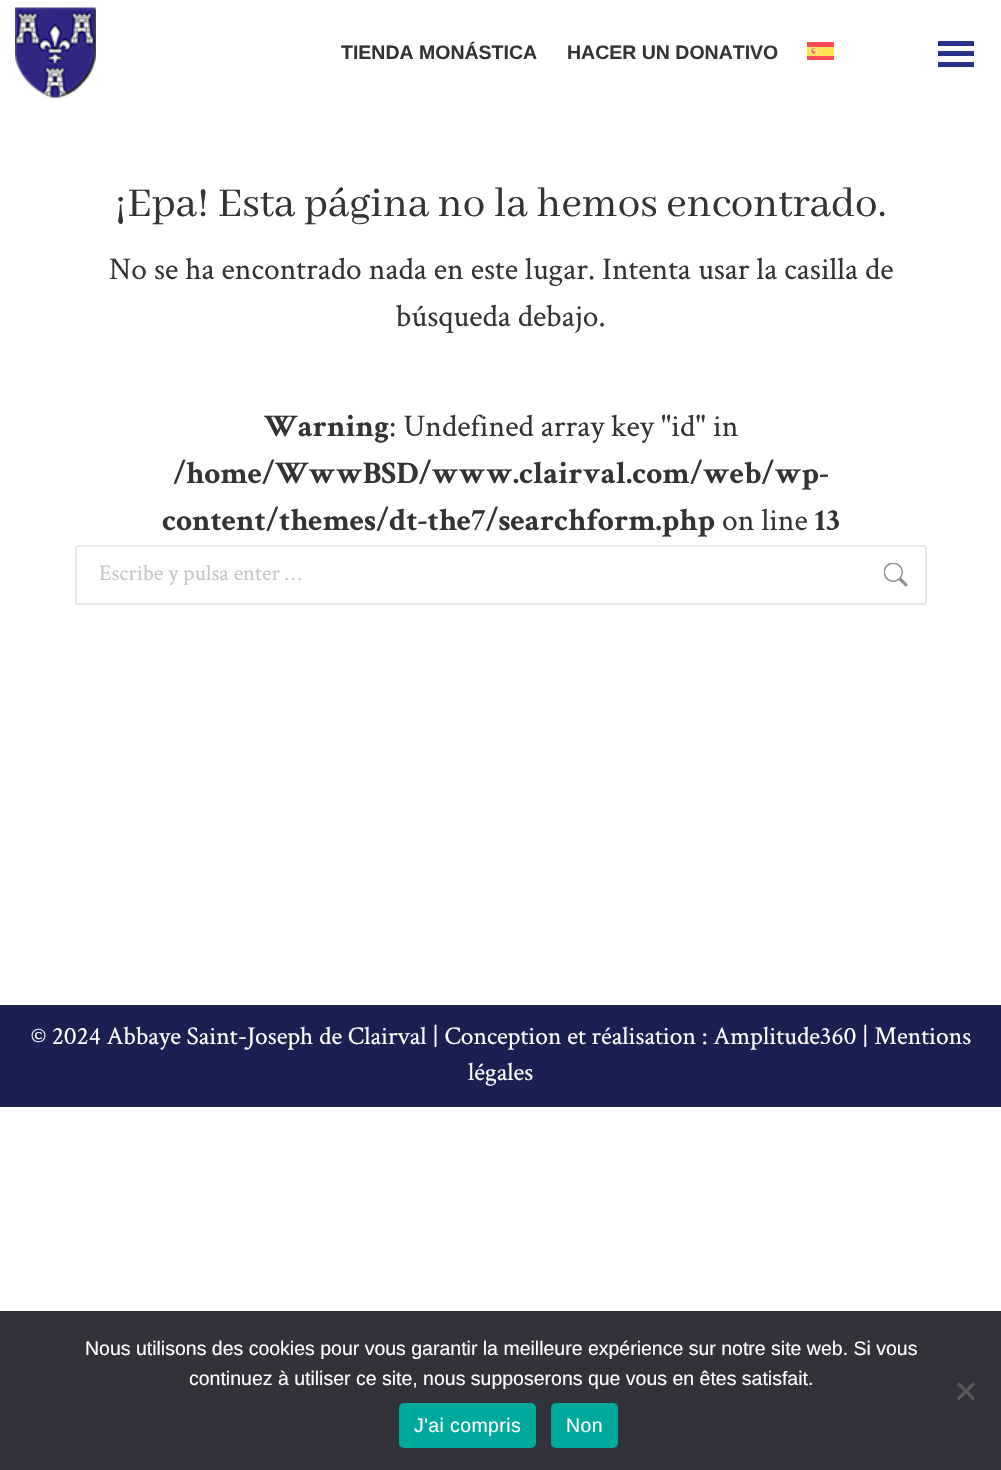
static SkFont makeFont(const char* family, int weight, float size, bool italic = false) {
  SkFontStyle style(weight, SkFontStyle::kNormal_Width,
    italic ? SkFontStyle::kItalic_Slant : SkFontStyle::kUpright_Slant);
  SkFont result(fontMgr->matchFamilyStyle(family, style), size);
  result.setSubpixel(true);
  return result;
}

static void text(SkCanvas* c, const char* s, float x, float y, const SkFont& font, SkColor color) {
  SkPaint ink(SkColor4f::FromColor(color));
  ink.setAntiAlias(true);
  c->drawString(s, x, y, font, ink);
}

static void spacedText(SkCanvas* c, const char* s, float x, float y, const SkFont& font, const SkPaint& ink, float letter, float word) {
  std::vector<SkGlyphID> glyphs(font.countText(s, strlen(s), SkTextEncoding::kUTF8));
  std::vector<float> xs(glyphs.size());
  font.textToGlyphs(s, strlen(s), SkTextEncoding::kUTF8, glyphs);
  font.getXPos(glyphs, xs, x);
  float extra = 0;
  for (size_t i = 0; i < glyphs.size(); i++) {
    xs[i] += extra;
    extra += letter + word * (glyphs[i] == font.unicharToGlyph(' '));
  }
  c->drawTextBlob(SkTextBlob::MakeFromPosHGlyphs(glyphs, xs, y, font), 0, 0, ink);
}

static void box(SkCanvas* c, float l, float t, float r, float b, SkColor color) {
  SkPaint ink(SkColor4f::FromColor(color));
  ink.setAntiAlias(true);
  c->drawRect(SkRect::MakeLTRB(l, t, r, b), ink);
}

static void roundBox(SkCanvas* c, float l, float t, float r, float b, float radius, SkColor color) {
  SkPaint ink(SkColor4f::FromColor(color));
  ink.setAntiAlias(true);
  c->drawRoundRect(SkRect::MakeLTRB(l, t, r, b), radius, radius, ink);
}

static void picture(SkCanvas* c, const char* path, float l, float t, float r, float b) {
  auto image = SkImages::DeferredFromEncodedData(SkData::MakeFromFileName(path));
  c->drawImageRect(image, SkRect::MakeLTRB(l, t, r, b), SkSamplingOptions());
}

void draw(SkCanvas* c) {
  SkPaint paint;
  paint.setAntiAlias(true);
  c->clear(0xffffffff);
  picture(c, "img_01.png", 15, 7, 96, 98);
  SkFont face1 = makeFont("Liberation Sans", 700, 19.5f);
  text(c, "TIENDA MONÁSTICA", 341, 59, face1, 0xff333333);
  text(c, "HACER UN DONATIVO", 567, 59, face1, 0xff333333);
  picture(c, "img_02.png", 807, 42, 834, 60);
  box(c, 938, 41, 974, 46, 0xff28328b);
  box(c, 938, 51, 974, 56, 0xff28328b);
  box(c, 938, 62, 974, 67, 0xff28328b);
  SkFont face2 = makeFont("Abhaya Libre", 400, 45);
  text(c, "¡Epa! Esta página no la hemos encontrado.", 116, 216, face2, 0xff333333);
  SkFont face3 = makeFont("Crimson Text", 400, 31.5f);
  text(c, "No se ha encontrado nada en este lugar. Intenta usar la casilla de", 109, 279, face3, 0xff333333);
  text(c, "búsqueda debajo.", 396, 326, face3, 0xff333333);
  SkFont face4 = makeFont("Crimson Text", 700, 31.5f);
  text(c, "Warning", 264, 436, face4, 0xff333333);
  text(c, ": Undefined array key \"id\" in", 389, 436, face3, 0xff333333);
  text(c, "/home/WwwBSD/www.clairval.com/web/wp-", 173, 483, face4, 0xff333333);
  text(c, "content/themes/dt-the7/searchform.php", 162, 530, face4, 0xff333333);
  text(c, "on line", 722, 530, face3, 0xff333333);
  text(c, "13", 814, 530, face4, 0xff333333);
  paint.setStyle(SkPaint::kStroke_Style);
  paint.setStrokeWidth(2);
  paint.setColor(0xffe7e7e7);
  c->drawRoundRect(SkRect::MakeLTRB(76, 546, 926, 604), 2, 2, paint);
  SkFont face5 = makeFont("Crimson Text", 400, 22.5f);
  text(c, "Escribe y pulsa enter …", 99, 580, face5, 0xffc4c5c9);
  picture(c, "img_03.png", 884, 563, 908, 587);
  box(c, 0, 1005, 1001, 1107, 0xff1a2051);
  SkFont face6 = makeFont("Crimson Text", 400, 25.5f);
  text(c, "© 2024 Abbaye Saint-Joseph de Clairval | Conception et réalisation : Amplitude360 | Mentions", 31, 1044, face6, 0xffffffff);
  text(c, "légales", 468, 1080, face6, 0xffffffff);
  box(c, 0, 1311, 1001, 1470, 0xff32323a);
  SkFont face7 = makeFont("Liberation Sans", 400, 19.5f);
  text(c, "Nous utilisons des cookies pour vous garantir la meilleure expérience sur notre site web. Si vous", 85, 1355, face7, 0xffffffff);
  text(c, "continuez à utiliser ce site, nous supposerons que vous en êtes satisfait.", 189, 1385, face7, 0xffffffff);
  paint.setStyle(SkPaint::kFill_Style);
  paint.setColor(0xff59595d);
  c->drawPath(SkPathBuilder().moveTo(973, 1382).lineTo(975, 1384.5f).lineTo(959, 1400.5f).lineTo(957, 1398).close().detach(), paint);
  c->drawPath(SkPathBuilder().moveTo(957, 1384.5f).lineTo(959, 1382).lineTo(975, 1398).lineTo(973, 1400.5f).close().detach(), paint);
  roundBox(c, 399, 1403, 536, 1448, 5, 0xff00a99d);
  paint.setColor(0xffffffff);
  spacedText(c, "J'ai compris", 414, 1432, face7, paint, 0.4f, 0);
  roundBox(c, 551, 1403, 618, 1448, 5, 0xff00a99d);
  spacedText(c, "Non", 566, 1432, face7, paint, 0.4f, 0);
}
